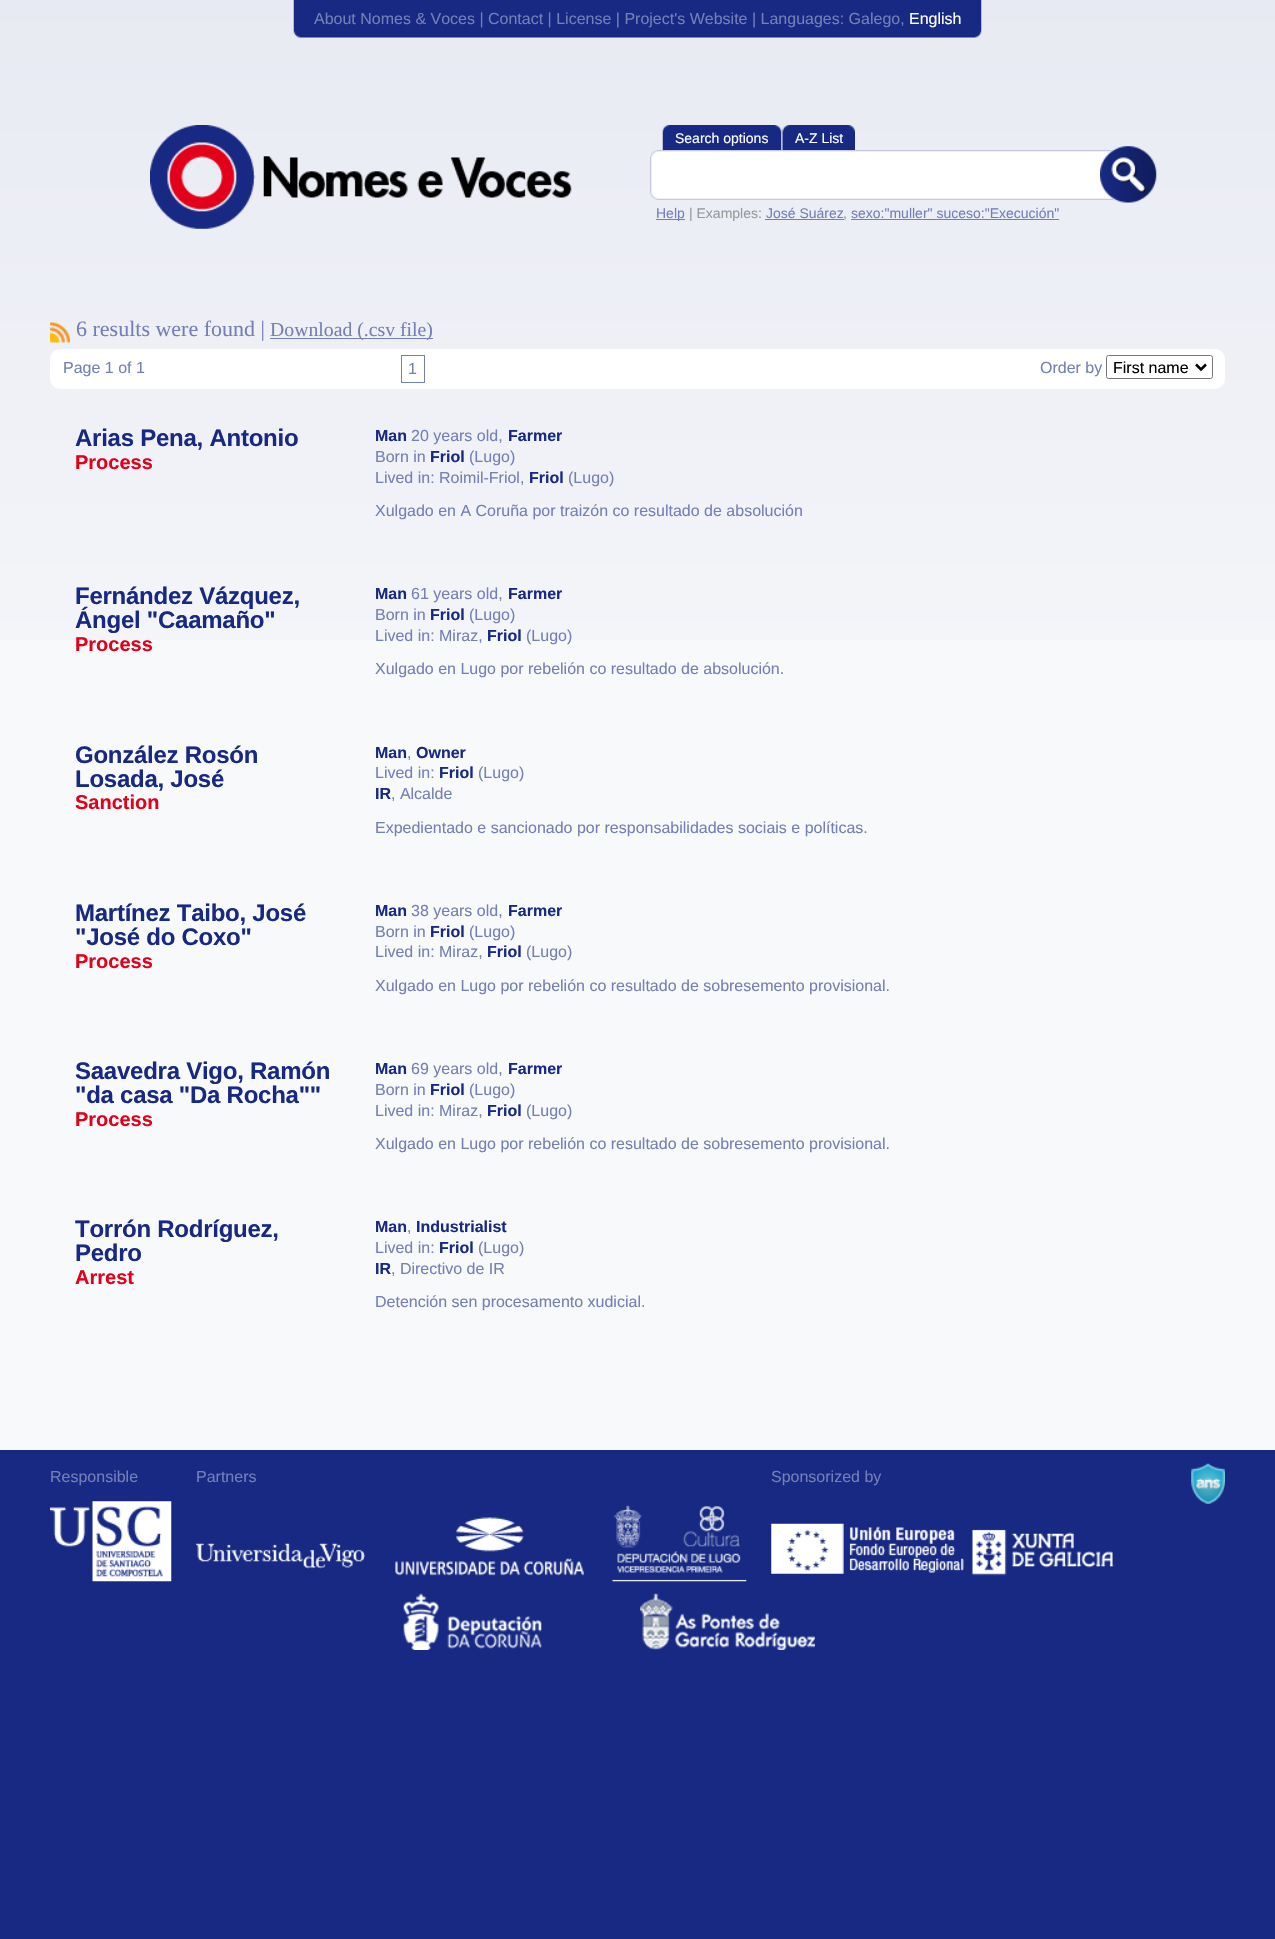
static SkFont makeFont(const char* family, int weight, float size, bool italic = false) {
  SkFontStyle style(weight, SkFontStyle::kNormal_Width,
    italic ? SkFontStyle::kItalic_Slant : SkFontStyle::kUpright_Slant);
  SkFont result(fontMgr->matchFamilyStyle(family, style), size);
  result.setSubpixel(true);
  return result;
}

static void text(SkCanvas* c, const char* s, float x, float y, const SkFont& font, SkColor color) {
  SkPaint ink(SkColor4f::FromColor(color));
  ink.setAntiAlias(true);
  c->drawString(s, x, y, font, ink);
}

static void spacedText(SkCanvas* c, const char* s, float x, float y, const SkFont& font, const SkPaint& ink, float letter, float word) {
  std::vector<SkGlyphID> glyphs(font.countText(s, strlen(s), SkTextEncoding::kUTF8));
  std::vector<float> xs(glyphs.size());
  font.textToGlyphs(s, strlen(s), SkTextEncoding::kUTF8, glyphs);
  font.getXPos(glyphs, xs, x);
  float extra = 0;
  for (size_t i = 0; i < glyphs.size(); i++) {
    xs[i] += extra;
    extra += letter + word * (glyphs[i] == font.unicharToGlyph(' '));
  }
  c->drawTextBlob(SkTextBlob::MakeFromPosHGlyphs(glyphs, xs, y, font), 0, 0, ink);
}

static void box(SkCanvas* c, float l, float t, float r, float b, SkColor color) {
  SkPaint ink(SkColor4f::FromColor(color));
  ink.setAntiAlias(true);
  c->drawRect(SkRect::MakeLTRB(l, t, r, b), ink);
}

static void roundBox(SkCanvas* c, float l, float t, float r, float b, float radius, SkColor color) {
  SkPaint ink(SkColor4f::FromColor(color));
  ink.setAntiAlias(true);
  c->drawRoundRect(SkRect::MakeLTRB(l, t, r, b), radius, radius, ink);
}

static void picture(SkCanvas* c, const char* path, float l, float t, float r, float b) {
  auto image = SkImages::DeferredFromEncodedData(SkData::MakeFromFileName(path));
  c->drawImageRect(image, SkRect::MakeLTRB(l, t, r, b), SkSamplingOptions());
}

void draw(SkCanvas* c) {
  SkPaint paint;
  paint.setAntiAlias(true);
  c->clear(0xff172983);
  box(c, 0, 640, 1275, 1450, 0xfff8f9fb);
  picture(c, "img_01.png", 0, 0, 1275, 640);
  picture(c, "img_02.png", 293, 0, 982, 38);
  SkFont face1 = makeFont("Liberation Sans", 400, 16);
  text(c, "About Nomes & Voces | Contact | License | Project's Website | Languages: Galego,", 314, 24, face1, 0xff747fb5);
  text(c, "English", 909, 24, face1, 0xffffffff);
  picture(c, "img_03.png", 150, 125, 572, 229);
  picture(c, "img_04.png", 675, 125, 782, 150);
  picture(c, "img_05.png", 662, 125, 675, 150);
  SkFont face2 = makeFont("Liberation Sans", 400, 14);
  text(c, "Search options", 675, 143, face2, 0xffffffff);
  picture(c, "img_06.png", 795, 125, 855, 150);
  picture(c, "img_07.png", 782, 125, 795, 150);
  text(c, "A-Z List", 795, 143, face2, 0xffffffff);
  picture(c, "img_08.png", 650, 163, 1117, 200);
  picture(c, "img_09.png", 650, 150, 1114, 163);
  picture(c, "img_10.png", 1100, 146, 1157, 203);
  box(c, 656, 219, 685, 220, 0xff747fb5);
  text(c, "Help", 656, 218, face2, 0xff747fb5);
  text(c, "| Examples:", 689, 218, face2, 0xff999999);
  text(c, "José Suárez", 766, 218, face2, 0xff747fb5);
  box(c, 765, 219, 844, 220, 0xff747fb5);
  text(c, ",", 843, 218, face2, 0xff999999);
  text(c, "sexo:\"muller\" suceso:\"Execución\"", 851, 218, face2, 0xff747fb5);
  box(c, 851, 219, 1059, 220, 0xff747fb5);
  picture(c, "img_11.png", 50, 322, 70, 343);
  SkFont face3 = makeFont("Liberation Serif", 400, 22);
  text(c, "6 results were found |", 76, 336, face3, 0xff747fb5);
  box(c, 270, 338, 433, 339, 0xff747fb5);
  SkFont face4 = makeFont("Liberation Serif", 400, 19.75f);
  text(c, "Download (.csv file)", 270, 336, face4, 0xff747fb5);
  roundBox(c, 50, 349, 1225, 389, 10, 0xffffffff);
  text(c, "Page 1 of 1", 63, 373, face1, 0xff747fb5);
  paint.setStyle(SkPaint::kStroke_Style);
  paint.setStrokeWidth(1);
  paint.setColor(0xff747fb5);
  c->drawRect(SkRect::MakeLTRB(401.5f, 355.5f, 424.5f, 382.5f), paint);
  text(c, "1", 408, 374, face1, 0xff747fb5);
  text(c, "Order by", 1040, 373, face1, 0xff747fb5);
  paint.setColor(0xff767676);
  c->drawRoundRect(SkRect::MakeLTRB(1106.5f, 355.5f, 1212.5f, 378.5f), 2, 2, paint);
  paint.setStrokeWidth(2.5f);
  paint.setColor(0xff000000);
  c->drawPath(SkPathBuilder().moveTo(1196, 364.5f).lineTo(1201, 369.5f).lineTo(1206, 364.5f).detach(), paint);
  text(c, "First name", 1113, 373, face1, 0xff000000);
  SkFont face5 = makeFont("Liberation Sans", 700, 24);
  paint.setStyle(SkPaint::kFill_Style);
  paint.setColor(0xff172983);
  spacedText(c, "Arias Pena, Antonio", 75, 446, face5, paint, -0.25f, 0);
  SkFont face6 = makeFont("Liberation Sans", 700, 20);
  text(c, "Process", 75, 469, face6, 0xffe2001a);
  SkFont face7 = makeFont("Liberation Sans", 700, 16);
  text(c, "Man", 375, 441, face7, 0xff172983);
  text(c, "20 years old,", 411, 441, face1, 0xff747fb5);
  text(c, "Farmer", 508, 441, face7, 0xff172983);
  text(c, "Born in", 375, 462, face1, 0xff747fb5);
  text(c, "Friol", 430, 462, face7, 0xff172983);
  text(c, "(Lugo)", 469, 462, face1, 0xff747fb5);
  text(c, "Lived in: Roimil-Friol,", 375, 483, face1, 0xff747fb5);
  text(c, "Friol", 529, 483, face7, 0xff172983);
  text(c, "(Lugo)", 568, 483, face1, 0xff747fb5);
  text(c, "Xulgado en A Coruña por traizón co resultado de absolución", 375, 516, face1, 0xff747fb5);
  spacedText(c, "Fernández Vázquez,", 75, 604, face5, paint, -0.25f, 0);
  spacedText(c, "Ángel \"Caamaño\"", 75, 628, face5, paint, -0.25f, 0);
  text(c, "Process", 75, 651, face6, 0xffe2001a);
  text(c, "Man", 375, 599, face7, 0xff172983);
  text(c, "61 years old,", 411, 599, face1, 0xff747fb5);
  text(c, "Farmer", 508, 599, face7, 0xff172983);
  text(c, "Born in", 375, 620, face1, 0xff747fb5);
  text(c, "Friol", 430, 620, face7, 0xff172983);
  text(c, "(Lugo)", 469, 620, face1, 0xff747fb5);
  text(c, "Lived in: Miraz,", 375, 641, face1, 0xff747fb5);
  text(c, "Friol", 487, 641, face7, 0xff172983);
  text(c, "(Lugo)", 526, 641, face1, 0xff747fb5);
  text(c, "Xulgado en Lugo por rebelión co resultado de absolución.", 375, 674, face1, 0xff747fb5);
  spacedText(c, "González Rosón", 75, 763, face5, paint, -0.25f, 0);
  spacedText(c, "Losada, José", 75, 787, face5, paint, -0.25f, 0);
  text(c, "Sanction", 75, 809, face6, 0xffe2001a);
  text(c, "Man", 375, 758, face7, 0xff172983);
  text(c, ",", 407, 758, face1, 0xff747fb5);
  text(c, "Owner", 416, 758, face7, 0xff172983);
  text(c, "Lived in:", 375, 778, face1, 0xff747fb5);
  text(c, "Friol", 439, 778, face7, 0xff172983);
  text(c, "(Lugo)", 478, 778, face1, 0xff747fb5);
  text(c, "IR", 375, 799, face7, 0xff172983);
  text(c, ", Alcalde", 391, 799, face1, 0xff747fb5);
  text(c, "Expedientado e sancionado por responsabilidades sociais e políticas.", 375, 833, face1, 0xff747fb5);
  spacedText(c, "Martínez Taibo, José", 75, 921, face5, paint, -0.25f, 0);
  spacedText(c, "\"José do Coxo\"", 75, 945, face5, paint, -0.25f, 0);
  text(c, "Process", 75, 968, face6, 0xffe2001a);
  text(c, "Man", 375, 916, face7, 0xff172983);
  text(c, "38 years old,", 411, 916, face1, 0xff747fb5);
  text(c, "Farmer", 508, 916, face7, 0xff172983);
  text(c, "Born in", 375, 937, face1, 0xff747fb5);
  text(c, "Friol", 430, 937, face7, 0xff172983);
  text(c, "(Lugo)", 469, 937, face1, 0xff747fb5);
  text(c, "Lived in: Miraz,", 375, 957, face1, 0xff747fb5);
  text(c, "Friol", 487, 957, face7, 0xff172983);
  text(c, "(Lugo)", 526, 957, face1, 0xff747fb5);
  text(c, "Xulgado en Lugo por rebelión co resultado de sobresemento provisional.", 375, 991, face1, 0xff747fb5);
  spacedText(c, "Saavedra Vigo, Ramón", 75, 1079, face5, paint, -0.25f, 0);
  spacedText(c, "\"da casa \"Da Rocha\"\"", 75, 1103, face5, paint, -0.25f, 0);
  text(c, "Process", 75, 1126, face6, 0xffe2001a);
  text(c, "Man", 375, 1074, face7, 0xff172983);
  text(c, "69 years old,", 411, 1074, face1, 0xff747fb5);
  text(c, "Farmer", 508, 1074, face7, 0xff172983);
  text(c, "Born in", 375, 1095, face1, 0xff747fb5);
  text(c, "Friol", 430, 1095, face7, 0xff172983);
  text(c, "(Lugo)", 469, 1095, face1, 0xff747fb5);
  text(c, "Lived in: Miraz,", 375, 1116, face1, 0xff747fb5);
  text(c, "Friol", 487, 1116, face7, 0xff172983);
  text(c, "(Lugo)", 526, 1116, face1, 0xff747fb5);
  text(c, "Xulgado en Lugo por rebelión co resultado de sobresemento provisional.", 375, 1149, face1, 0xff747fb5);
  spacedText(c, "Torrón Rodríguez,", 75, 1237, face5, paint, -0.25f, 0);
  spacedText(c, "Pedro", 75, 1261, face5, paint, -0.25f, 0);
  text(c, "Arrest", 75, 1284, face6, 0xffe2001a);
  text(c, "Man", 375, 1232, face7, 0xff172983);
  text(c, ",", 407, 1232, face1, 0xff747fb5);
  text(c, "Industrialist", 416, 1232, face7, 0xff172983);
  text(c, "Lived in:", 375, 1253, face1, 0xff747fb5);
  text(c, "Friol", 439, 1253, face7, 0xff172983);
  text(c, "(Lugo)", 478, 1253, face1, 0xff747fb5);
  text(c, "IR", 375, 1274, face7, 0xff172983);
  text(c, ", Directivo de IR", 391, 1274, face1, 0xff747fb5);
  text(c, "Detención sen procesamento xudicial.", 375, 1307, face1, 0xff747fb5);
  text(c, "Responsible", 50, 1482, face1, 0xff747fb5);
  picture(c, "img_12.png", 50, 1501, 172, 1582);
  text(c, "Partners", 196, 1482, face1, 0xff747fb5);
  picture(c, "img_13.png", 196, 1543, 365, 1569);
  picture(c, "img_14.png", 395, 1517, 584, 1576);
  picture(c, "img_15.png", 612, 1505, 747, 1582);
  text(c, "Sponsorized by", 771, 1482, face1, 0xff747fb5);
  picture(c, "img_16.png", 771, 1523, 964, 1574);
  picture(c, "img_17.png", 972, 1529, 1114, 1576);
  picture(c, "img_18.png", 1191, 1463, 1225, 1504);
  picture(c, "img_19.png", 403, 1593, 542, 1650);
  picture(c, "img_20.png", 640, 1593, 815, 1650);
}
